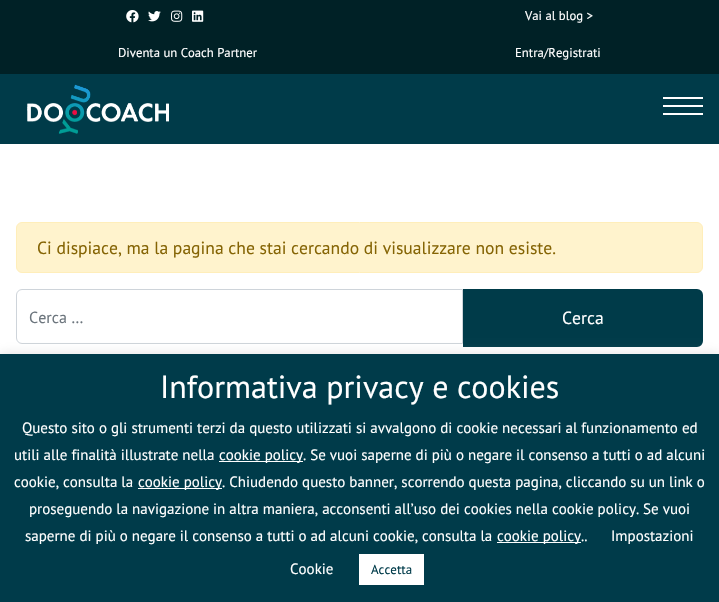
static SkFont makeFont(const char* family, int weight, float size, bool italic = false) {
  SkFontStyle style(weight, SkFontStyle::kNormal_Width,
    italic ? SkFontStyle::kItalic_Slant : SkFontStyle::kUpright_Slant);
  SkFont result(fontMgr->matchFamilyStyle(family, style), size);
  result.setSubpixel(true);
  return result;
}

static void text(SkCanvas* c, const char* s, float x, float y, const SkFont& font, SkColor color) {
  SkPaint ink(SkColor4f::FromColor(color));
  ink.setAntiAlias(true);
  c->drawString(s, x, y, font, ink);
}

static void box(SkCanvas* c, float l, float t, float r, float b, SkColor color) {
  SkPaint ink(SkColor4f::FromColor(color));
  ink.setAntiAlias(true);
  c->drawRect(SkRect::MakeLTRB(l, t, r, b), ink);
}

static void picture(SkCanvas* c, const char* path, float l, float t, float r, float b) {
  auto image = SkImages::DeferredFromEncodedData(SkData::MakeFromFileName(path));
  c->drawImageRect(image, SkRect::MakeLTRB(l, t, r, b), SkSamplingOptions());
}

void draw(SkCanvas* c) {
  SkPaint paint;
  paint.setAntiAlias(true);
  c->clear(0xffffffff);
  box(c, 0, 74, 719, 144, 0xff003b49);
  box(c, 0, 0, 719, 74, 0xff002126);
  picture(c, "img_01.png", 126, 10, 139, 23);
  picture(c, "img_02.png", 148, 11, 161, 22);
  picture(c, "img_03.png", 171, 10, 183, 22);
  picture(c, "img_04.png", 192, 10, 204, 22);
  SkFont face1 = makeFont("PT Sans", 400, 12.75f);
  text(c, "Vai al blog >", 525, 20, face1, 0xffffffff);
  text(c, "Diventa un Coach Partner", 118, 57, face1, 0xffffffff);
  text(c, "Entra/Registrati", 515, 57, face1, 0xffffffff);
  picture(c, "img_05.png", 27, 84, 169, 134);
  box(c, 663, 97, 703, 99, 0xffffffff);
  box(c, 663, 105, 703, 107, 0xffffffff);
  box(c, 663, 113, 703, 115, 0xffffffff);
  paint.setColor(0xfffff3cd);
  c->drawRoundRect(SkRect::MakeLTRB(16.5f, 222.5f, 702.5f, 272.5f), 5.5f, 5.5f, paint);
  paint.setStyle(SkPaint::kStroke_Style);
  paint.setStrokeWidth(1);
  paint.setColor(0xffffeeba);
  c->drawRoundRect(SkRect::MakeLTRB(16.5f, 222.5f, 702.5f, 272.5f), 5.5f, 5.5f, paint);
  SkFont face2 = makeFont("PT Sans", 400, 17.6f);
  text(c, "Ci dispiace, ma la pagina che stai cercando di visualizzare non esiste.", 37, 254, face2, 0xff856404);
  paint.setColor(0xffced4da);
  c->drawPath(SkPathBuilder().moveTo(22, 289.5f).lineTo(462.5f, 289.5f).lineTo(462.5f, 343.5f).lineTo(22, 343.5f).cubicTo(19, 343.5f, 16.5f, 341, 16.5f, 338).lineTo(16.5f, 295).cubicTo(16.5f, 292, 19, 289.5f, 22, 289.5f).close().detach(), paint);
  SkFont face3 = makeFont("PT Sans", 400, 16);
  text(c, "Cerca …", 29, 323, face3, 0xff6c757d);
  paint.setStyle(SkPaint::kFill_Style);
  paint.setColor(0xff003b49);
  c->drawPath(SkPathBuilder().moveTo(464.5f, 290.5f).lineTo(697, 290.5f).cubicTo(699.5f, 290.5f, 701.5f, 292.5f, 701.5f, 295).lineTo(701.5f, 341).cubicTo(701.5f, 343.5f, 699.5f, 345.5f, 697, 345.5f).lineTo(464.5f, 345.5f).close().detach(), paint);
  paint.setStyle(SkPaint::kStroke_Style);
  paint.setStrokeWidth(3);
  c->drawPath(SkPathBuilder().moveTo(464.5f, 290.5f).lineTo(697, 290.5f).cubicTo(699.5f, 290.5f, 701.5f, 292.5f, 701.5f, 295).lineTo(701.5f, 341).cubicTo(701.5f, 343.5f, 699.5f, 345.5f, 697, 345.5f).lineTo(464.5f, 345.5f).close().detach(), paint);
  text(c, "Cerca", 562, 324, face2, 0xffffffff);
  paint.setStyle(SkPaint::kFill_Style);
  paint.setColor(0x4dacabab);
  paint.setMaskFilter(SkMaskFilter::MakeBlur(kNormal_SkBlurStyle, 5));
  c->drawRect(SkRect::MakeLTRB(0, 353, 719, 601), paint);
  paint.setMaskFilter(nullptr);
  box(c, 0, 354, 719, 602, 0xff003b4a);
  SkFont face4 = makeFont("PT Sans", 400, 32);
  text(c, "Informativa privacy e cookies", 160, 398, face4, 0xffffffff);
  SkFont face5 = makeFont("PT Sans", 400, 15);
  text(c, "Questo sito o gli strumenti terzi da questo utilizzati si avvalgono di cookie necessari al funzionamento ed", 22, 433, face5, 0xffffffff);
  text(c, "utili alle finalità illustrate nella", 14, 460, face5, 0xffffffff);
  box(c, 219, 461, 303, 462, 0xffffffff);
  text(c, "cookie policy. Se vuoi saperne di più o negare il consenso a tutti o ad alcuni", 219, 460, face5, 0xffffffff);
  text(c, "cookie, consulta la", 14, 487, face5, 0xffffffff);
  box(c, 138, 488, 222, 489, 0xffffffff);
  text(c, "cookie policy. Chiudendo questo banner, scorrendo questa pagina, cliccando su un link o", 138, 487, face5, 0xffffffff);
  text(c, "proseguendo la navigazione in altra maniera, acconsenti all’uso dei cookies nella cookie policy. Se vuoi", 29, 514, face5, 0xffffffff);
  text(c, "saperne di più o negare il consenso a tutti o ad alcuni cookie, consulta la", 25, 541, face5, 0xffffffff);
  box(c, 497, 542, 581, 543, 0xffffffff);
  text(c, "cookie policy..", 497, 541, face5, 0xffffffff);
  text(c, "Impostazioni", 611, 541, face5, 0xffffffff);
  text(c, "Cookie", 290, 574, face5, 0xffffffff);
  box(c, 359, 554, 424, 585, 0xffffffff);
  SkFont face6 = makeFont("PT Sans", 400, 13);
  text(c, "Accetta", 371, 574, face6, 0xff003b4a);
}
